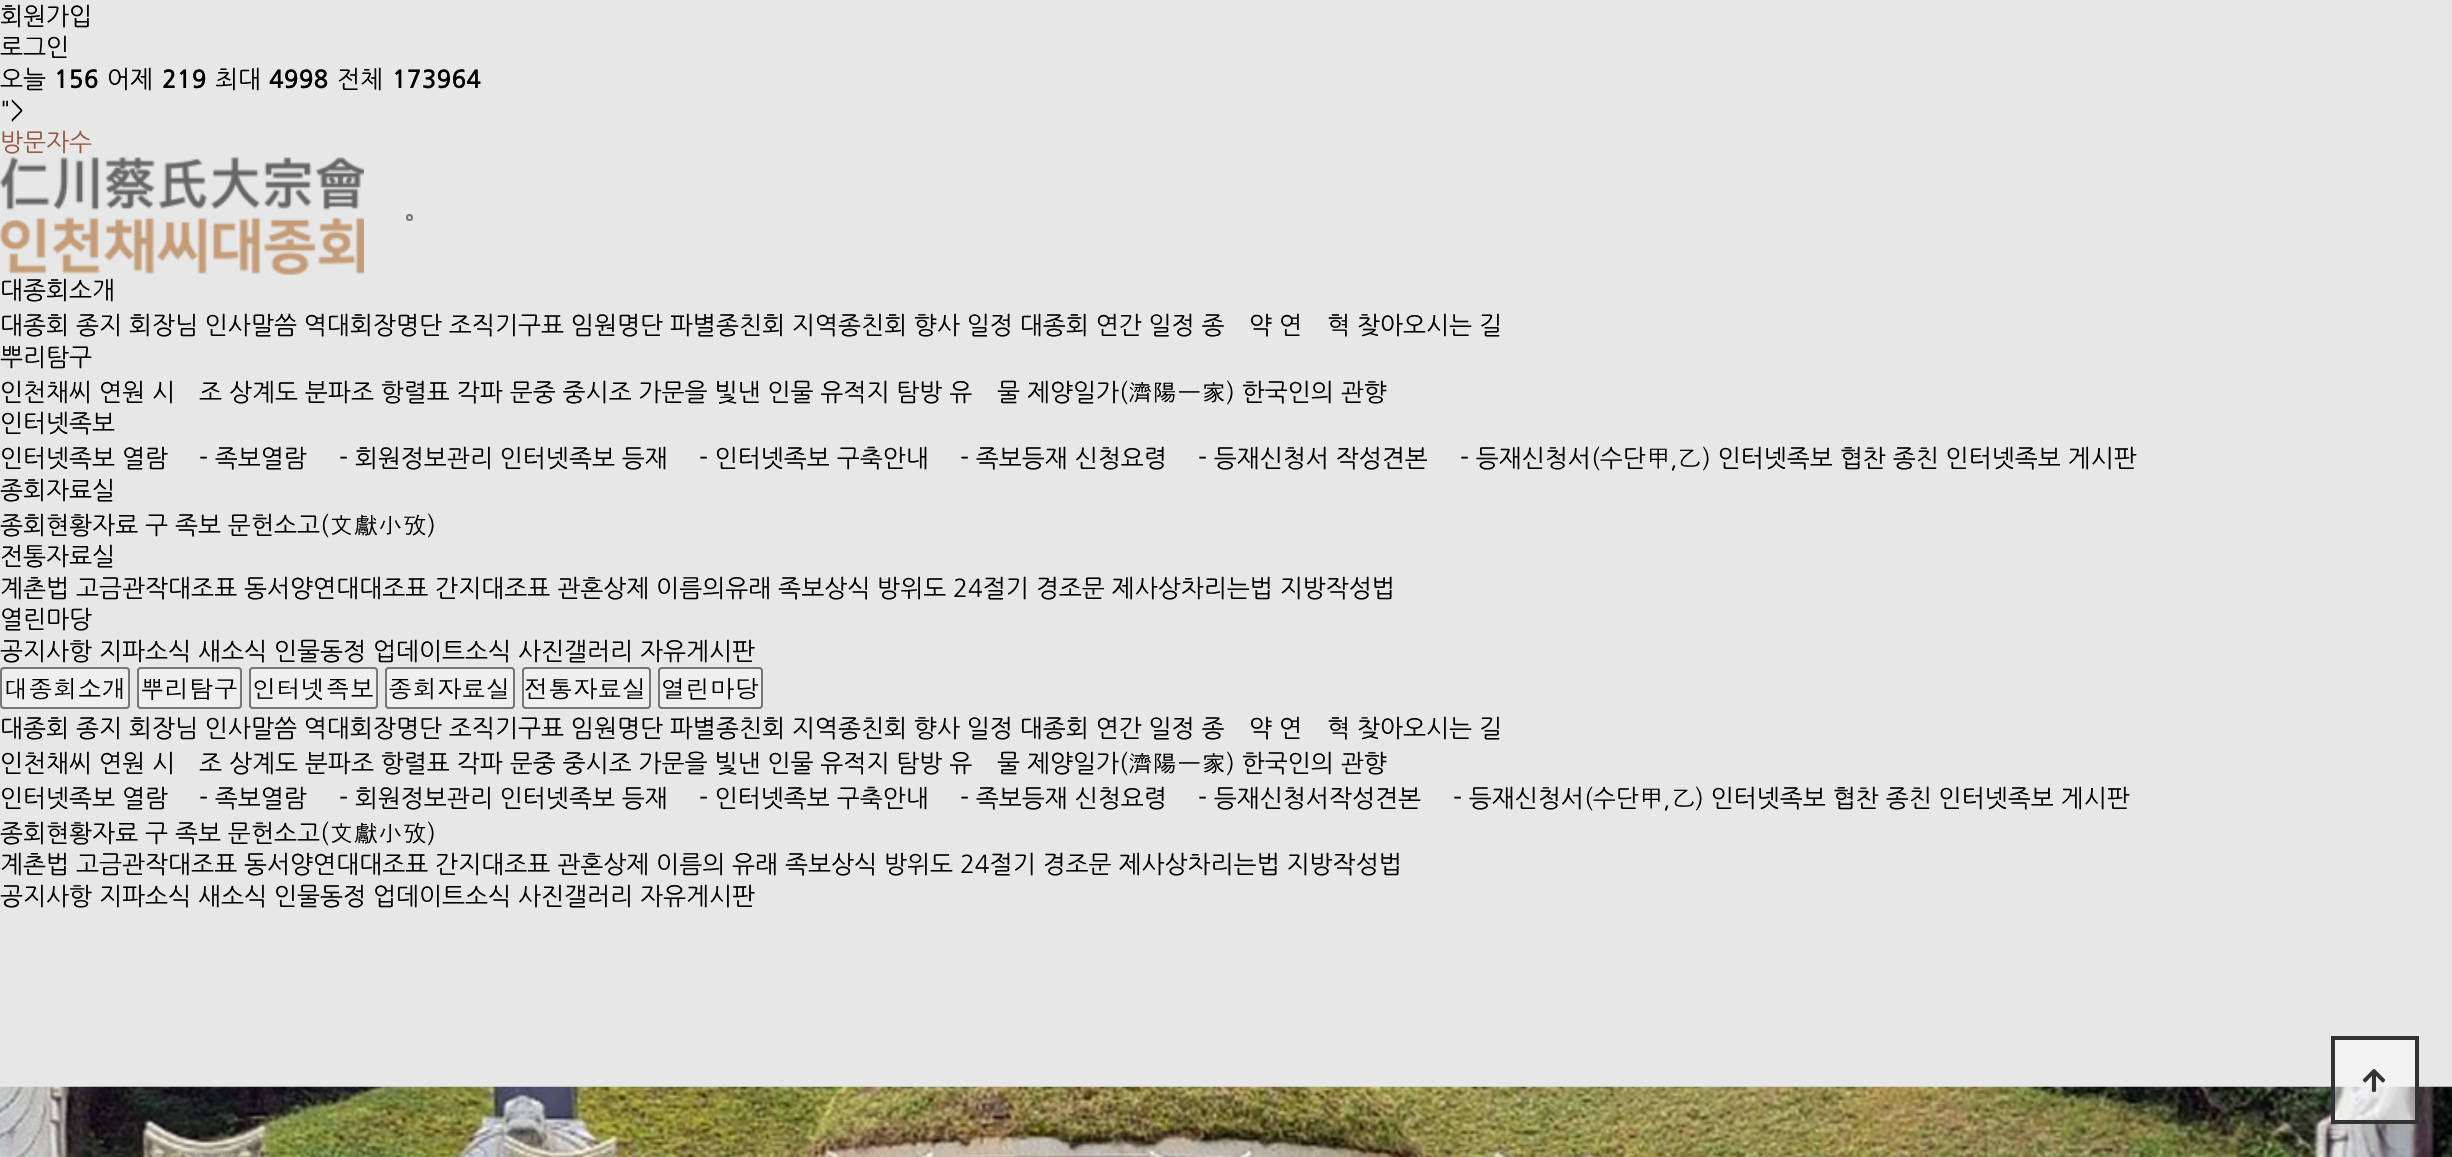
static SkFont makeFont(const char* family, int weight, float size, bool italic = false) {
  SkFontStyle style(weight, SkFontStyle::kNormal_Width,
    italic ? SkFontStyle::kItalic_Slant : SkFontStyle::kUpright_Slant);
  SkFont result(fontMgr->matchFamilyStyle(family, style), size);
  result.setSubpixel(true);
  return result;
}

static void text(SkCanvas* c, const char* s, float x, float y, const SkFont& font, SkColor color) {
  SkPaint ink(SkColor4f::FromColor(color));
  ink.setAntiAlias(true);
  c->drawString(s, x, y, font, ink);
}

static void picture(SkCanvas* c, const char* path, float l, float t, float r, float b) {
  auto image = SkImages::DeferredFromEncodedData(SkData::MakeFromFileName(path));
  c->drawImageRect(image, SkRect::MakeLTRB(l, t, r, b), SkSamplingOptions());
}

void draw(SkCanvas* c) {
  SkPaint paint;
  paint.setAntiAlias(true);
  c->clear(0xffe7e7e7);
  SkFont face1 = makeFont("NanumGothic", 400, 24.5f);
  text(c, "회원가입", 0, 25, face1, 0xff000000);
  text(c, "로그인", 0, 56, face1, 0xff000000);
  text(c, "오늘", 0, 88, face1, 0xff000000);
  SkFont face2 = makeFont("NanumGothic", 700, 24.5f);
  text(c, "156", 54, 88, face2, 0xff000000);
  text(c, "어제", 107, 88, face1, 0xff000000);
  text(c, "219", 162, 88, face2, 0xff000000);
  text(c, "최대", 215, 88, face1, 0xff000000);
  text(c, "4998", 269, 88, face2, 0xff000000);
  text(c, "전체", 337, 88, face1, 0xff000000);
  text(c, "173964", 392, 88, face2, 0xff000000);
  text(c, "\">", 0, 119, face1, 0xff000000);
  text(c, "방문자수", 0, 151, face1, 0xff955b43);
  picture(c, "img_01.png", 0, 157, 364, 275);
  paint.setColor(0xffefefef);
  c->drawCircle(409.5f, 217.5f, 2.5f, paint);
  paint.setStyle(SkPaint::kStroke_Style);
  paint.setStrokeWidth(2);
  paint.setColor(0xff767676);
  c->drawCircle(409.5f, 217.5f, 2.5f, paint);
  text(c, "대종회소개", 0, 299, face1, 0xff000000);
  text(c, "대종회 종지 회장님 인사말씀 역대회장명단 조직기구표 임원명단 파별종친회 지역종친회 향사 일정 대종회 연간 일정 종", 0, 334, face1, 0xff000000);
  text(c, "약 연", 1249, 334, face1, 0xff000000);
  text(c, "혁 찾아오시는 길", 1327, 334, face1, 0xff000000);
  text(c, "뿌리탐구", 0, 366, face1, 0xff000000);
  text(c, "인천채씨 연원 시", 0, 401, face1, 0xff000000);
  text(c, "조 상계도 분파조 항렬표 각파 문중 중시조 가문을 빛낸 인물 유적지 탐방 유", 199, 401, face1, 0xff000000);
  text(c, "물 제양일가(", 997, 401, face1, 0xff000000);
  SkFont face3 = makeFont("Gulim", 400, 24.5f);
  text(c, "濟陽一家", 1128, 401, face3, 0xff000000);
  text(c, ") 한국인의 관향", 1226, 401, face1, 0xff000000);
  text(c, "인터넷족보", 0, 432, face1, 0xff000000);
  text(c, "인터넷족보 열람", 0, 467, face1, 0xff000000);
  text(c, "- 족보열람", 199, 467, face1, 0xff000000);
  text(c, "- 회원정보관리 인터넷족보 등재", 339, 467, face1, 0xff000000);
  text(c, "- 인터넷족보 구축안내", 699, 467, face1, 0xff000000);
  text(c, "- 족보등재 신청요령", 960, 467, face1, 0xff000000);
  text(c, "- 등재신청서 작성견본", 1198, 467, face1, 0xff000000);
  text(c, "- 등재신청서(수단", 1460, 467, face1, 0xff000000);
  text(c, "甲", 1646, 467, face3, 0xff000000);
  text(c, "乙", 1677, 467, face3, 0xff000000);
  text(c, ") 인터넷족보 협찬 종친 인터넷족보 게시판", 1702, 467, face1, 0xff000000);
  text(c, ",", 1670, 467, face1, 0xff000000);
  text(c, "종회자료실", 0, 499, face1, 0xff000000);
  text(c, "종회현황자료 구 족보 문헌소고(", 0, 534, face1, 0xff000000);
  text(c, "文獻小攷", 329, 534, face3, 0xff000000);
  text(c, ")", 427, 534, face1, 0xff000000);
  text(c, "전통자료실", 0, 565, face1, 0xff000000);
  text(c, "계촌법 고금관작대조표 동서양연대대조표 간지대조표 관혼상제 이름의유래 족보상식 방위도 24절기 경조문 제사상차리는법 지방작성법", 0, 597, face1, 0xff000000);
  text(c, "열린마당", 0, 628, face1, 0xff000000);
  text(c, "공지사항 지파소식 새소식 인물동정 업데이트소식 사진갤러리 자유게시판", 0, 660, face1, 0xff000000);
  paint.setStyle(SkPaint::kFill_Style);
  paint.setColor(0xffefefef);
  c->drawRoundRect(SkRect::MakeLTRB(1, 668, 129, 708), 3, 3, paint);
  paint.setStyle(SkPaint::kStroke_Style);
  paint.setColor(0xff767676);
  c->drawRoundRect(SkRect::MakeLTRB(1, 668, 129, 708), 3, 3, paint);
  SkFont face4 = makeFont("Dotum", 400, 24.5f);
  text(c, "대종회소개", 4, 698, face4, 0xff000000);
  paint.setStyle(SkPaint::kFill_Style);
  paint.setColor(0xffefefef);
  c->drawRoundRect(SkRect::MakeLTRB(138, 668, 241, 708), 3, 3, paint);
  paint.setStyle(SkPaint::kStroke_Style);
  paint.setColor(0xff767676);
  c->drawRoundRect(SkRect::MakeLTRB(138, 668, 241, 708), 3, 3, paint);
  text(c, "뿌리탐구", 140, 698, face4, 0xff000000);
  paint.setStyle(SkPaint::kFill_Style);
  paint.setColor(0xffefefef);
  c->drawRoundRect(SkRect::MakeLTRB(250, 668, 377, 708), 3, 3, paint);
  paint.setStyle(SkPaint::kStroke_Style);
  paint.setColor(0xff767676);
  c->drawRoundRect(SkRect::MakeLTRB(250, 668, 377, 708), 3, 3, paint);
  text(c, "인터넷족보", 252, 698, face4, 0xff000000);
  paint.setStyle(SkPaint::kFill_Style);
  paint.setColor(0xffefefef);
  c->drawRoundRect(SkRect::MakeLTRB(386, 668, 514, 708), 3, 3, paint);
  paint.setStyle(SkPaint::kStroke_Style);
  paint.setColor(0xff767676);
  c->drawRoundRect(SkRect::MakeLTRB(386, 668, 514, 708), 3, 3, paint);
  text(c, "종회자료실", 388, 698, face4, 0xff000000);
  paint.setStyle(SkPaint::kFill_Style);
  paint.setColor(0xffefefef);
  c->drawRoundRect(SkRect::MakeLTRB(523, 668, 650, 708), 3, 3, paint);
  paint.setStyle(SkPaint::kStroke_Style);
  paint.setColor(0xff767676);
  c->drawRoundRect(SkRect::MakeLTRB(523, 668, 650, 708), 3, 3, paint);
  text(c, "전통자료실", 524, 698, face4, 0xff000000);
  paint.setStyle(SkPaint::kFill_Style);
  paint.setColor(0xffefefef);
  c->drawRoundRect(SkRect::MakeLTRB(659, 668, 762, 708), 3, 3, paint);
  paint.setStyle(SkPaint::kStroke_Style);
  paint.setColor(0xff767676);
  c->drawRoundRect(SkRect::MakeLTRB(659, 668, 762, 708), 3, 3, paint);
  text(c, "열린마당", 661, 698, face4, 0xff000000);
  text(c, "대종회 종지 회장님 인사말씀 역대회장명단 조직기구표 임원명단 파별종친회 지역종친회 향사 일정 대종회 연간 일정 종", 0, 737, face1, 0xff000000);
  text(c, "약 연", 1249, 737, face1, 0xff000000);
  text(c, "혁 찾아오시는 길", 1327, 737, face1, 0xff000000);
  text(c, "인천채씨 연원 시", 0, 772, face1, 0xff000000);
  text(c, "조 상계도 분파조 항렬표 각파 문중 중시조 가문을 빛낸 인물 유적지 탐방 유", 199, 772, face1, 0xff000000);
  text(c, "물 제양일가(", 997, 772, face1, 0xff000000);
  text(c, "濟陽一家", 1128, 772, face3, 0xff000000);
  text(c, ") 한국인의 관향", 1226, 772, face1, 0xff000000);
  text(c, "인터넷족보 열람", 0, 807, face1, 0xff000000);
  text(c, "- 족보열람", 199, 807, face1, 0xff000000);
  text(c, "- 회원정보관리 인터넷족보 등재", 339, 807, face1, 0xff000000);
  text(c, "- 인터넷족보 구축안내", 699, 807, face1, 0xff000000);
  text(c, "- 족보등재 신청요령", 960, 807, face1, 0xff000000);
  text(c, "- 등재신청서작성견본", 1198, 807, face1, 0xff000000);
  text(c, "- 등재신청서(수단", 1453, 807, face1, 0xff000000);
  text(c, "甲", 1639, 807, face3, 0xff000000);
  text(c, "乙", 1671, 807, face3, 0xff000000);
  text(c, ") 인터넷족보 협찬 종친 인터넷족보 게시판", 1695, 807, face1, 0xff000000);
  text(c, ",", 1663, 807, face1, 0xff000000);
  text(c, "종회현황자료 구 족보 문헌소고(", 0, 842, face1, 0xff000000);
  text(c, "文獻小攷", 329, 842, face3, 0xff000000);
  text(c, ")", 427, 842, face1, 0xff000000);
  text(c, "계촌법 고금관작대조표 동서양연대대조표 간지대조표 관혼상제 이름의 유래 족보상식 방위도 24절기 경조문 제사상차리는법 지방작성법", 0, 873, face1, 0xff000000);
  text(c, "공지사항 지파소식 새소식 인물동정 업데이트소식 사진갤러리 자유게시판", 0, 905, face1, 0xff000000);
  picture(c, "img_03.png", 0, 1086, 2452, 1157);
  paint.setStyle(SkPaint::kFill_Style);
  paint.setColor(0x80ffffff);
  c->drawRect(SkRect::MakeLTRB(2333, 1038, 2417, 1122), paint);
  paint.setStyle(SkPaint::kStroke_Style);
  paint.setStrokeWidth(4);
  paint.setColor(0xff333333);
  c->drawRect(SkRect::MakeLTRB(2333, 1038, 2417, 1122), paint);
  picture(c, "img_02.png", 2362, 1069, 2386, 1092);
}
